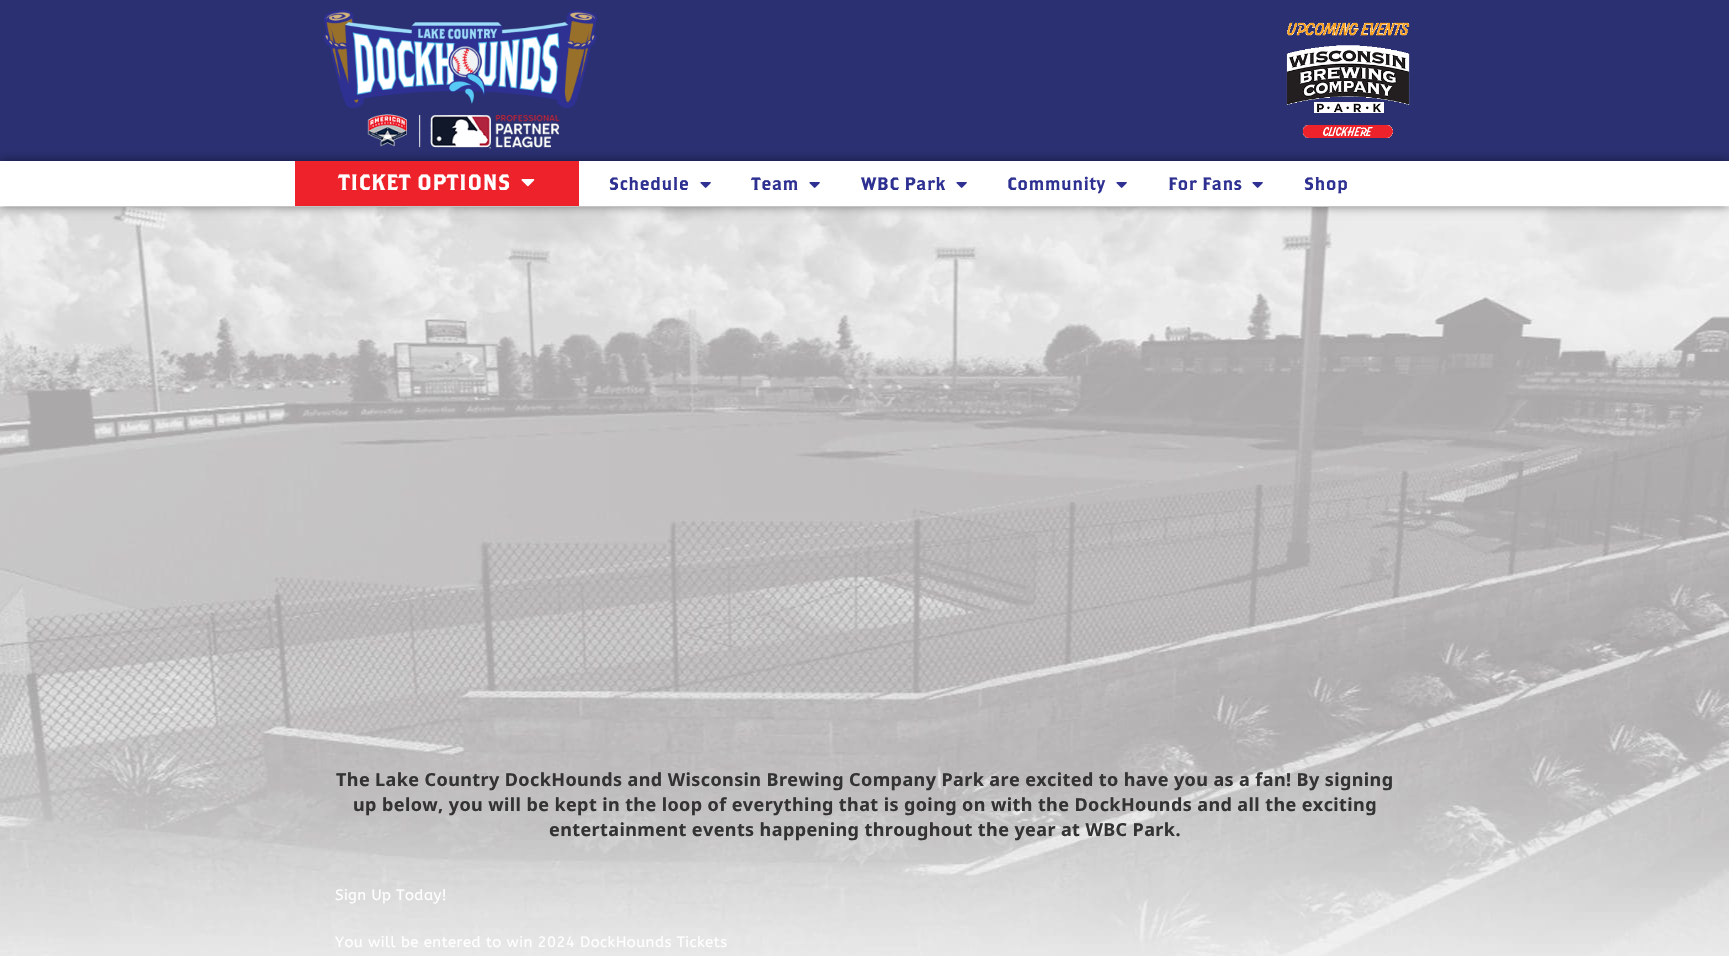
static SkFont makeFont(const char* family, int weight, float size, bool italic = false) {
  SkFontStyle style(weight, SkFontStyle::kNormal_Width,
    italic ? SkFontStyle::kItalic_Slant : SkFontStyle::kUpright_Slant);
  SkFont result(fontMgr->matchFamilyStyle(family, style), size);
  result.setSubpixel(true);
  return result;
}

static void spacedText(SkCanvas* c, const char* s, float x, float y, const SkFont& font, const SkPaint& ink, float letter, float word) {
  std::vector<SkGlyphID> glyphs(font.countText(s, strlen(s), SkTextEncoding::kUTF8));
  std::vector<float> xs(glyphs.size());
  font.textToGlyphs(s, strlen(s), SkTextEncoding::kUTF8, glyphs);
  font.getXPos(glyphs, xs, x);
  float extra = 0;
  for (size_t i = 0; i < glyphs.size(); i++) {
    xs[i] += extra;
    extra += letter + word * (glyphs[i] == font.unicharToGlyph(' '));
  }
  c->drawTextBlob(SkTextBlob::MakeFromPosHGlyphs(glyphs, xs, y, font), 0, 0, ink);
}

static void box(SkCanvas* c, float l, float t, float r, float b, SkColor color) {
  SkPaint ink(SkColor4f::FromColor(color));
  ink.setAntiAlias(true);
  c->drawRect(SkRect::MakeLTRB(l, t, r, b), ink);
}

static void picture(SkCanvas* c, const char* path, float l, float t, float r, float b) {
  auto image = SkImages::DeferredFromEncodedData(SkData::MakeFromFileName(path));
  c->drawImageRect(image, SkRect::MakeLTRB(l, t, r, b), SkSamplingOptions());
}

void draw(SkCanvas* c) {
  SkPaint paint;
  paint.setAntiAlias(true);
  c->clear(0xffffffff);
  picture(c, "img_01.png", 0, 207, 1729, 956);
  box(c, 0, 0, 1729, 161, 0xff2a3071);
  picture(c, "img_02.png", 324, 10, 597, 108);
  picture(c, "img_03.png", 367, 114, 560, 149);
  picture(c, "img_04.png", 1286, 22, 1410, 138);
  c->save();
  c->clipPath(SkPathBuilder(SkPathFillType::kEvenOdd).moveTo(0, 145).lineTo(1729, 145).lineTo(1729, 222).lineTo(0, 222).close().moveTo(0, 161).lineTo(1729, 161).lineTo(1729, 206).lineTo(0, 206).close().detach(), true);
  paint.setColor(0x80000000);
  paint.setMaskFilter(SkMaskFilter::MakeBlur(kNormal_SkBlurStyle, 5));
  c->drawRect(SkRect::MakeLTRB(0, 161, 1729, 206), paint);
  paint.setMaskFilter(nullptr);
  c->restore();
  box(c, 295, 161, 579, 206, 0xffee222b);
  SkFont face1 = makeFont("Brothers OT", 400, 22);
  paint.setColor(0xffffffff);
  spacedText(c, "TICKET OPTIONS", 338, 190, face1, paint, 0.4f, 0);
  picture(c, "img_05.png", 521, 179, 535, 187);
  SkFont face2 = makeFont("Brothers OT", 400, 18);
  paint.setColor(0xff2e3192);
  spacedText(c, "Schedule", 609, 190, face2, paint, 0.4f, 0);
  picture(c, "img_06.png", 700, 182, 711, 188);
  spacedText(c, "Team", 751, 190, face2, paint, 0.4f, 0);
  picture(c, "img_06.png", 809, 182, 820, 188);
  spacedText(c, "WBC Park", 861, 190, face2, paint, 0.4f, 0);
  picture(c, "img_06.png", 956, 182, 967, 188);
  spacedText(c, "Community", 1007, 190, face2, paint, 0.4f, 0);
  picture(c, "img_06.png", 1116, 182, 1127, 188);
  spacedText(c, "For Fans", 1168, 190, face2, paint, 0.4f, 0);
  picture(c, "img_06.png", 1252, 182, 1263, 188);
  spacedText(c, "Shop", 1304, 190, face2, paint, 0.4f, 0);
  SkFont face3 = makeFont("Noto Sans", 700, 18);
  paint.setColor(0xff333333);
  spacedText(c, "The Lake Country DockHounds and Wisconsin Brewing Company Park are excited to have you as a fan! By signing", 336, 786, face3, paint, 0.4f, 0);
  spacedText(c, "up below, you will be kept in the loop of everything that is going on with the DockHounds and all the exciting", 353, 811, face3, paint, 0.4f, 0);
  spacedText(c, "entertainment events happening throughout the year at WBC Park.", 549, 836, face3, paint, 0.4f, 0);
  SkFont face4 = makeFont("ABeeZee", 400, 15);
  paint.setColor(0xffffffff);
  spacedText(c, "Sign Up Today!", 335, 900, face4, paint, 0.4f, 0);
  spacedText(c, "You will be entered to win 2024 DockHounds Tickets", 335, 947, face4, paint, 0.4f, 0);
}
